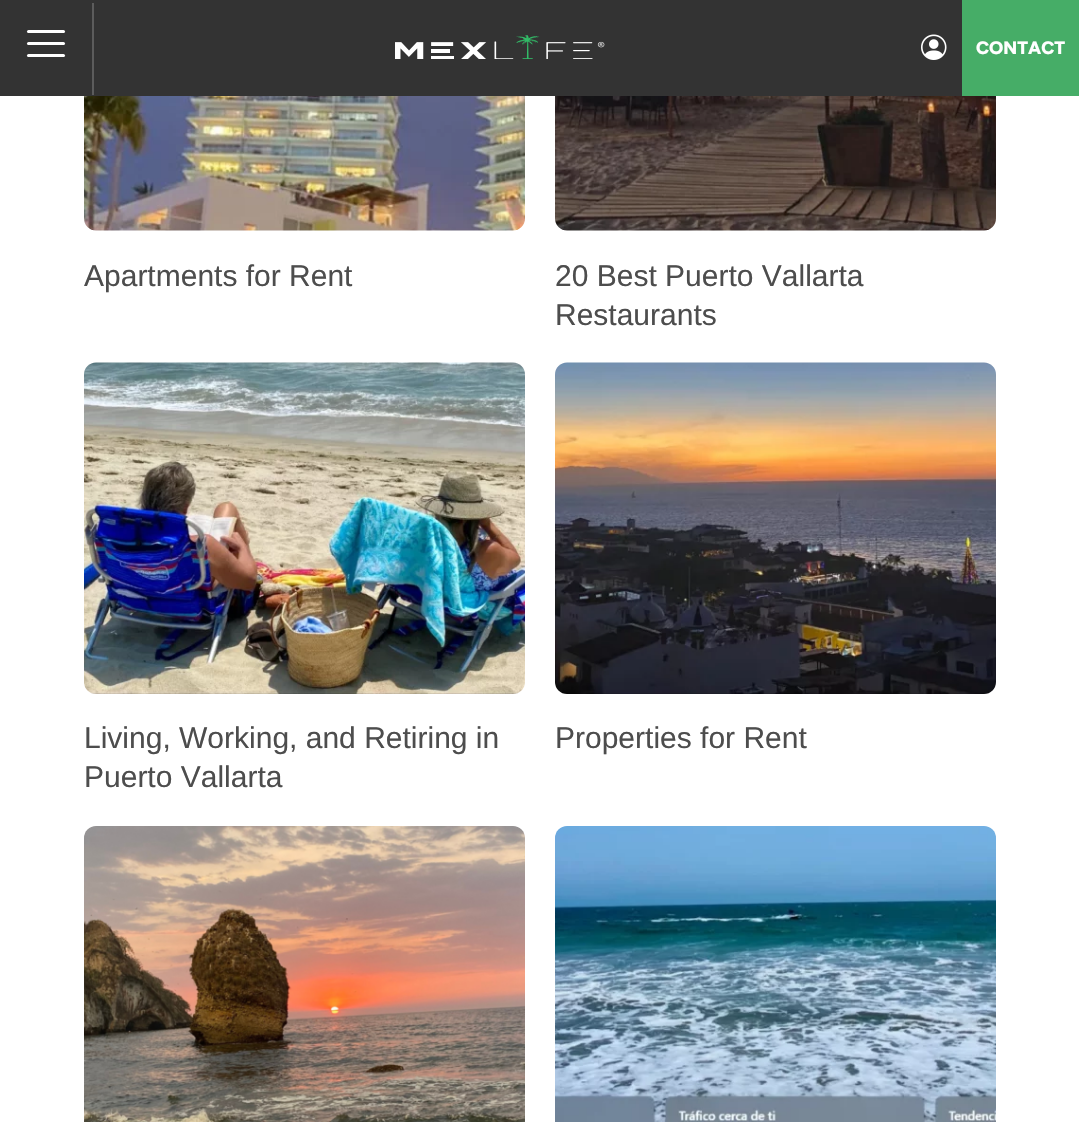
static SkFont makeFont(const char* family, int weight, float size, bool italic = false) {
  SkFontStyle style(weight, SkFontStyle::kNormal_Width,
    italic ? SkFontStyle::kItalic_Slant : SkFontStyle::kUpright_Slant);
  SkFont result(fontMgr->matchFamilyStyle(family, style), size);
  result.setSubpixel(true);
  return result;
}

static void text(SkCanvas* c, const char* s, float x, float y, const SkFont& font, SkColor color) {
  SkPaint ink(SkColor4f::FromColor(color));
  ink.setAntiAlias(true);
  c->drawString(s, x, y, font, ink);
}

static void box(SkCanvas* c, float l, float t, float r, float b, SkColor color) {
  SkPaint ink(SkColor4f::FromColor(color));
  ink.setAntiAlias(true);
  c->drawRect(SkRect::MakeLTRB(l, t, r, b), ink);
}

static void roundBox(SkCanvas* c, float l, float t, float r, float b, float radius, SkColor color) {
  SkPaint ink(SkColor4f::FromColor(color));
  ink.setAntiAlias(true);
  c->drawRoundRect(SkRect::MakeLTRB(l, t, r, b), radius, radius, ink);
}

static void picture(SkCanvas* c, const char* path, float l, float t, float r, float b) {
  auto image = SkImages::DeferredFromEncodedData(SkData::MakeFromFileName(path));
  c->drawImageRect(image, SkRect::MakeLTRB(l, t, r, b), SkSamplingOptions());
}

void draw(SkCanvas* c) {
  SkPaint paint;
  paint.setAntiAlias(true);
  c->clear(0xffffffff);
  box(c, 0, 0, 962, 96, 0xff333333);
  box(c, 92, 3, 94, 95, 0xff5c5c5c);
  roundBox(c, 27, 30, 65, 33, 1.5f, 0xffffffff);
  roundBox(c, 27, 42, 65, 45, 1.5f, 0xffffffff);
  roundBox(c, 27, 54, 65, 57, 1.5f, 0xffffffff);
  picture(c, "img_01.png", 395, 35, 605, 59);
  picture(c, "img_02.png", 921, 34, 947, 60);
  box(c, 962, 0, 1079, 96, 0xff46ad67);
  SkFont face1 = makeFont("Figtree", 800, 18);
  text(c, "CONTACT", 976, 54, face1, 0xffffffff);
  picture(c, "img_03.png", 84, 96, 525, 231);
  SkFont face2 = makeFont("Liberation Sans", 400, 30);
  text(c, "Apartments for Rent", 84, 286, face2, 0xff4d4d4d);
  picture(c, "img_04.png", 555, 96, 996, 231);
  text(c, "20 Best Puerto Vallarta", 555, 286, face2, 0xff4d4d4d);
  text(c, "Restaurants", 555, 325, face2, 0xff4d4d4d);
  picture(c, "img_05.png", 84, 362, 525, 694);
  text(c, "Living, Working, and Retiring in", 84, 748, face2, 0xff4d4d4d);
  text(c, "Puerto Vallarta", 84, 787, face2, 0xff4d4d4d);
  picture(c, "img_06.png", 555, 362, 996, 694);
  text(c, "Properties for Rent", 555, 748, face2, 0xff4d4d4d);
  picture(c, "img_07.png", 84, 826, 525, 1122);
  picture(c, "img_08.png", 555, 826, 996, 1122);
}
